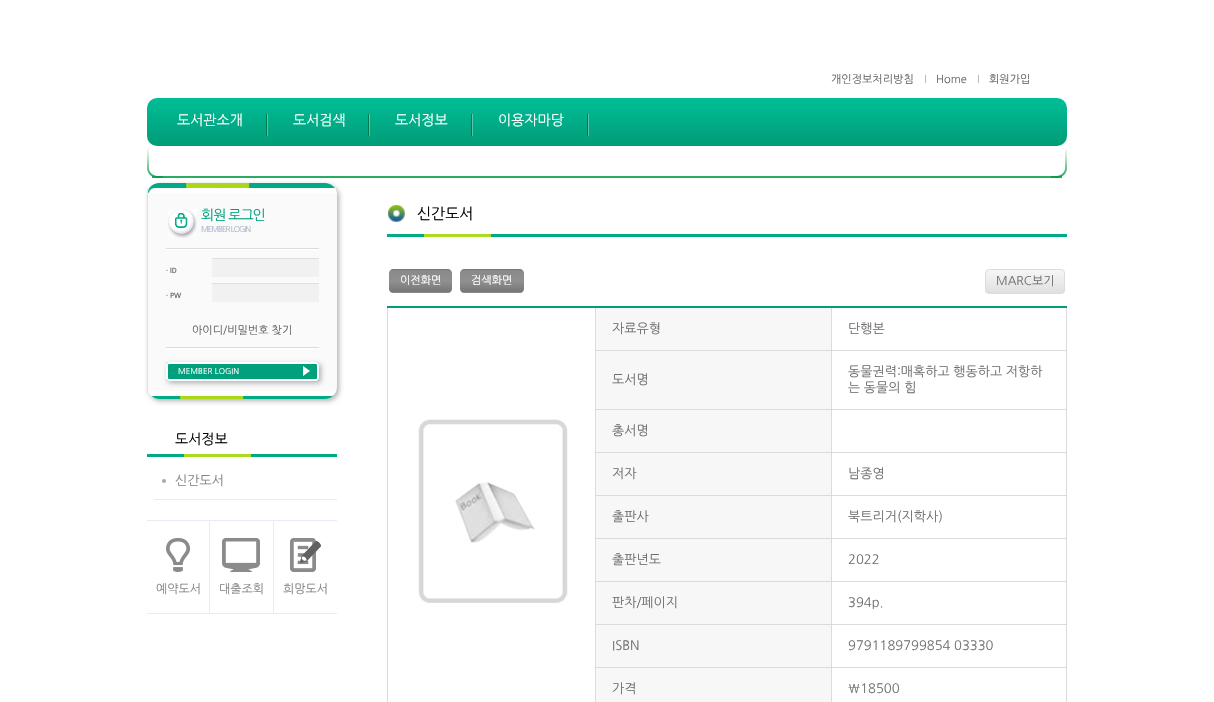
static SkFont makeFont(const char* family, int weight, float size, bool italic = false) {
  SkFontStyle style(weight, SkFontStyle::kNormal_Width,
    italic ? SkFontStyle::kItalic_Slant : SkFontStyle::kUpright_Slant);
  SkFont result(fontMgr->matchFamilyStyle(family, style), size);
  result.setSubpixel(true);
  return result;
}

static void text(SkCanvas* c, const char* s, float x, float y, const SkFont& font, SkColor color) {
  SkPaint ink(SkColor4f::FromColor(color));
  ink.setAntiAlias(true);
  c->drawString(s, x, y, font, ink);
}

static void spacedText(SkCanvas* c, const char* s, float x, float y, const SkFont& font, const SkPaint& ink, float letter, float word) {
  std::vector<SkGlyphID> glyphs(font.countText(s, strlen(s), SkTextEncoding::kUTF8));
  std::vector<float> xs(glyphs.size());
  font.textToGlyphs(s, strlen(s), SkTextEncoding::kUTF8, glyphs);
  font.getXPos(glyphs, xs, x);
  float extra = 0;
  for (size_t i = 0; i < glyphs.size(); i++) {
    xs[i] += extra;
    extra += letter + word * (glyphs[i] == font.unicharToGlyph(' '));
  }
  c->drawTextBlob(SkTextBlob::MakeFromPosHGlyphs(glyphs, xs, y, font), 0, 0, ink);
}

static void box(SkCanvas* c, float l, float t, float r, float b, SkColor color) {
  SkPaint ink(SkColor4f::FromColor(color));
  ink.setAntiAlias(true);
  c->drawRect(SkRect::MakeLTRB(l, t, r, b), ink);
}

static void roundBox(SkCanvas* c, float l, float t, float r, float b, float radius, SkColor color) {
  SkPaint ink(SkColor4f::FromColor(color));
  ink.setAntiAlias(true);
  c->drawRoundRect(SkRect::MakeLTRB(l, t, r, b), radius, radius, ink);
}

static void picture(SkCanvas* c, const char* path, float l, float t, float r, float b) {
  auto image = SkImages::DeferredFromEncodedData(SkData::MakeFromFileName(path));
  c->drawImageRect(image, SkRect::MakeLTRB(l, t, r, b), SkSamplingOptions());
}

void draw(SkCanvas* c) {
  SkPaint paint;
  paint.setAntiAlias(true);
  c->clear(0xffffffff);
  SkFont face1 = makeFont("NanumGothic", 400, 11);
  text(c, "개인정보처리방침", 831, 83, face1, 0xff666666);
  box(c, 925, 75, 926, 83, 0xffbab9b9);
  text(c, "Home", 936, 83, face1, 0xff666666);
  box(c, 978, 75, 979, 83, 0xffbab9b9);
  text(c, "회원가입", 989, 83, face1, 0xff666666);
  {
    const SkColor colors[] = {0xff00be97, 0xff019c77};
    const float stops[] = {0, 1};
    const SkPoint ends[] = {{607, 98}, {607, 146}};
    paint.setShader(SkGradientShader::MakeLinear(ends, colors, stops, 2, SkTileMode::kClamp));
    paint.setAlpha(255);
  }
  c->drawRoundRect(SkRect::MakeLTRB(147, 98, 1067, 146), 10, 10, paint);
  picture(c, "img_01.png", 266, 114, 268, 137);
  SkFont face2 = makeFont("NanumGothic", 400, 14);
  text(c, "도서관소개", 177, 125, face2, 0xffffffff);
  picture(c, "img_01.png", 368, 114, 370, 137);
  text(c, "도서검색", 293, 125, face2, 0xffffffff);
  picture(c, "img_01.png", 471, 114, 473, 137);
  text(c, "도서정보", 395, 125, face2, 0xffffffff);
  picture(c, "img_01.png", 587, 114, 589, 137);
  text(c, "이용자마당", 498, 125, face2, 0xffffffff);
  paint.setShader(nullptr);
  paint.setColor(0x4d000000);
  paint.setMaskFilter(SkMaskFilter::MakeBlur(kNormal_SkBlurStyle, 2.5f));
  c->drawRoundRect(SkRect::MakeLTRB(149, 185, 339, 401), 12, 12, paint);
  paint.setMaskFilter(nullptr);
  box(c, 152, 176, 1062, 178, 0xff2dab65);
  picture(c, "img_02.png", 147, 147, 163, 178);
  picture(c, "img_03.png", 1051, 150, 1067, 178);
  roundBox(c, 147, 183, 337, 399, 12, 0xfffafafb);
  picture(c, "img_04.png", 148, 183, 337, 193);
  box(c, 147, 189, 148, 393, 0xffdce2ea);
  picture(c, "img_05.png", 168, 209, 197, 238);
  paint.setColor(0xff01a07c);
  spacedText(c, "회원 로그인", 201, 220, face2, paint, -1, 0);
  SkFont face3 = makeFont("NanumGothic", 400, 8);
  paint.setColor(0xffa6b4c8);
  spacedText(c, "MEMBER LOGIN", 201, 232, face3, paint, -1, 0);
  box(c, 166, 248, 319, 249, 0xffd7dbe2);
  box(c, 166, 249, 319, 250, 0xffffffff);
  SkFont face4 = makeFont("NanumGothic", 700, 7);
  text(c, "· ID", 166, 273, face4, 0xff6f6f6f);
  box(c, 212, 259, 319, 277, 0xfff1f1f1);
  box(c, 212, 258, 319, 259, 0xffdfdfdf);
  text(c, "· PW", 166, 298, face4, 0xff6f6f6f);
  box(c, 212, 284, 319, 302, 0xfff1f1f1);
  box(c, 212, 283, 319, 284, 0xffdfdfdf);
  text(c, "아이디/비밀번호 찾기", 192, 334, face1, 0xff666666);
  box(c, 166, 347, 319, 348, 0xffd7dbe2);
  box(c, 166, 348, 319, 349, 0xffffffff);
  picture(c, "img_07.png", 151, 391, 336, 399);
  paint.setColor(0x4d000000);
  paint.setMaskFilter(SkMaskFilter::MakeBlur(kNormal_SkBlurStyle, 2.5f));
  c->drawRoundRect(SkRect::MakeLTRB(168, 364, 321, 383), 3, 3, paint);
  paint.setMaskFilter(nullptr);
  roundBox(c, 166, 362, 319, 381, 3, 0xff00a07c);
  picture(c, "img_06.png", 303, 366, 310, 376);
  paint.setStyle(SkPaint::kStroke_Style);
  paint.setStrokeWidth(2);
  paint.setColor(0xffffffff);
  c->drawRoundRect(SkRect::MakeLTRB(167, 363, 318, 380), 2, 2, paint);
  text(c, "MEMBER LOGIN", 178, 374, face3, 0xffffffff);
  text(c, "도서정보", 175, 444, face2, 0xff000000);
  box(c, 147, 454, 337, 457, 0xff00aa84);
  box(c, 184, 454, 251, 457, 0xffaed921);
  box(c, 154, 499, 337, 500, 0xffe7ebf3);
  paint.setStyle(SkPaint::kFill_Style);
  paint.setColor(0xffa9a9a9);
  c->drawCircle(164, 481, 2, paint);
  SkFont face5 = makeFont("NanumGothic", 400, 13);
  text(c, "신간도서", 175, 485, face5, 0xff858585);
  box(c, 147, 520, 337, 521, 0xffe7ebf3);
  box(c, 147, 613, 337, 614, 0xffe7ebf3);
  picture(c, "img_08.png", 166, 538, 190, 572);
  box(c, 209, 521, 210, 613, 0xffe7ebf3);
  SkFont face6 = makeFont("NanumGothic", 400, 12);
  text(c, "예약도서", 156, 593, face6, 0xff858585);
  picture(c, "img_09.png", 222, 538, 260, 572);
  box(c, 273, 521, 274, 613, 0xffe7ebf3);
  text(c, "대출조회", 219, 593, face6, 0xff858585);
  picture(c, "img_10.png", 290, 538, 321, 572);
  text(c, "희망도서", 283, 593, face6, 0xff858585);
  picture(c, "img_11.png", 388, 204, 405, 222);
  SkFont face7 = makeFont("NanumGothic", 400, 15);
  text(c, "신간도서", 417, 219, face7, 0xff000000);
  box(c, 387, 234, 1067, 237, 0xff00aa84);
  box(c, 424, 234, 491, 237, 0xffaed921);
  c->save();
  c->clipPath(SkPathBuilder().moveTo(393, 269).lineTo(448, 269).cubicTo(450, 269, 452, 271, 452, 273).lineTo(452, 289).cubicTo(452, 291, 450, 293, 448, 293).lineTo(393, 293).cubicTo(391, 293, 389, 291, 389, 289).lineTo(389, 273).cubicTo(389, 271, 391, 269, 393, 269).close().detach(), true);
  {
    const SkColor colors[] = {0xff898989, 0xff909090, 0xff767676};
    const float stops[] = {0, 0.5f, 1};
    const SkPoint ends[] = {{421, 248}, {421, 270}};
    paint.setShader(SkGradientShader::MakeLinear(ends, colors, stops, 3, SkTileMode::kClamp));
    paint.setAlpha(255);
  }
  c->drawRect(SkRect::MakeLTRB(389, 269, 452, 270), paint);
  {
    const SkColor colors[] = {0xff898989, 0xff909090, 0xff767676};
    const float stops[] = {0, 0.5f, 1};
    const SkPoint ends[] = {{421, 270}, {421, 292}};
    paint.setShader(SkGradientShader::MakeLinear(ends, colors, stops, 3, SkTileMode::kClamp));
    paint.setAlpha(255);
  }
  c->drawRect(SkRect::MakeLTRB(389, 270, 452, 292), paint);
  {
    const SkColor colors[] = {0xff898989, 0xff909090, 0xff767676};
    const float stops[] = {0, 0.5f, 1};
    const SkPoint ends[] = {{421, 292}, {421, 314}};
    paint.setShader(SkGradientShader::MakeLinear(ends, colors, stops, 3, SkTileMode::kClamp));
    paint.setAlpha(255);
  }
  c->drawRect(SkRect::MakeLTRB(389, 292, 452, 293), paint);
  c->restore();
  text(c, "이전화면", 400, 284, face1, 0xffffffff);
  c->save();
  c->clipPath(SkPathBuilder().moveTo(464, 269).lineTo(520, 269).cubicTo(522, 269, 524, 271, 524, 273).lineTo(524, 289).cubicTo(524, 291, 522, 293, 520, 293).lineTo(464, 293).cubicTo(462, 293, 460, 291, 460, 289).lineTo(460, 273).cubicTo(460, 271, 462, 269, 464, 269).close().detach(), true);
  {
    const SkColor colors[] = {0xff898989, 0xff909090, 0xff767676};
    const float stops[] = {0, 0.5f, 1};
    const SkPoint ends[] = {{492, 248}, {492, 270}};
    paint.setShader(SkGradientShader::MakeLinear(ends, colors, stops, 3, SkTileMode::kClamp));
    paint.setAlpha(255);
  }
  c->drawRect(SkRect::MakeLTRB(460, 269, 524, 270), paint);
  {
    const SkColor colors[] = {0xff898989, 0xff909090, 0xff767676};
    const float stops[] = {0, 0.5f, 1};
    const SkPoint ends[] = {{492, 270}, {492, 292}};
    paint.setShader(SkGradientShader::MakeLinear(ends, colors, stops, 3, SkTileMode::kClamp));
    paint.setAlpha(255);
  }
  c->drawRect(SkRect::MakeLTRB(460, 270, 524, 292), paint);
  {
    const SkColor colors[] = {0xff898989, 0xff909090, 0xff767676};
    const float stops[] = {0, 0.5f, 1};
    const SkPoint ends[] = {{492, 292}, {492, 314}};
    paint.setShader(SkGradientShader::MakeLinear(ends, colors, stops, 3, SkTileMode::kClamp));
    paint.setAlpha(255);
  }
  c->drawRect(SkRect::MakeLTRB(460, 292, 524, 293), paint);
  c->restore();
  text(c, "검색화면", 471, 284, face1, 0xffffffff);
  c->save();
  c->clipPath(SkPathBuilder().moveTo(989, 269).lineTo(1061, 269).cubicTo(1063, 269, 1065, 271, 1065, 273).lineTo(1065, 290).cubicTo(1065, 292, 1063, 294, 1061, 294).lineTo(989, 294).cubicTo(987, 294, 985, 292, 985, 290).lineTo(985, 273).cubicTo(985, 271, 987, 269, 989, 269).close().detach(), true);
  {
    const SkColor colors[] = {0xfff6f6f6, 0xffe0e0e0};
    const float stops[] = {0, 1};
    const SkPoint ends[] = {{1025, 270}, {1025, 293}};
    paint.setShader(SkGradientShader::MakeLinear(ends, colors, stops, 2, SkTileMode::kClamp));
    paint.setAlpha(255);
  }
  c->drawRect(SkRect::MakeLTRB(985, 270, 1065, 293), paint);
  c->restore();
  paint.setStyle(SkPaint::kStroke_Style);
  paint.setStrokeWidth(1);
  paint.setShader(nullptr);
  paint.setColor(0xffdcdcdc);
  c->drawRoundRect(SkRect::MakeLTRB(985.5f, 269.5f, 1064.5f, 293.5f), 3.5f, 3.5f, paint);
  text(c, "MARC보기", 996, 285, face6, 0xff6f6f6f);
  box(c, 387, 307, 388, 702, 0xffdbdbdb);
  box(c, 831, 350, 1067, 351, 0xffdbdbdb);
  box(c, 831, 409, 1067, 410, 0xffdbdbdb);
  box(c, 831, 452, 1067, 453, 0xffdbdbdb);
  box(c, 831, 495, 1067, 496, 0xffdbdbdb);
  box(c, 831, 538, 1067, 539, 0xffdbdbdb);
  box(c, 831, 581, 1067, 582, 0xffdbdbdb);
  box(c, 831, 624, 1067, 625, 0xffdbdbdb);
  box(c, 831, 667, 1067, 668, 0xffdbdbdb);
  box(c, 831, 667, 832, 702, 0xffdbdbdb);
  box(c, 595, 667, 832, 668, 0xffdbdbdb);
  box(c, 831, 624, 832, 668, 0xffdbdbdb);
  box(c, 595, 624, 832, 625, 0xffdbdbdb);
  box(c, 831, 581, 832, 625, 0xffdbdbdb);
  box(c, 595, 581, 832, 582, 0xffdbdbdb);
  box(c, 831, 538, 832, 582, 0xffdbdbdb);
  box(c, 595, 538, 832, 539, 0xffdbdbdb);
  box(c, 831, 495, 832, 539, 0xffdbdbdb);
  box(c, 595, 495, 832, 496, 0xffdbdbdb);
  box(c, 831, 452, 832, 496, 0xffdbdbdb);
  box(c, 595, 452, 832, 453, 0xffdbdbdb);
  box(c, 831, 409, 832, 453, 0xffdbdbdb);
  box(c, 595, 409, 832, 410, 0xffdbdbdb);
  box(c, 831, 350, 832, 410, 0xffdbdbdb);
  box(c, 595, 350, 832, 351, 0xffdbdbdb);
  box(c, 831, 307, 832, 351, 0xffdbdbdb);
  box(c, 595, 667, 596, 702, 0xffdbdbdb);
  box(c, 595, 624, 596, 668, 0xffdbdbdb);
  box(c, 595, 581, 596, 625, 0xffdbdbdb);
  box(c, 595, 538, 596, 582, 0xffdbdbdb);
  box(c, 595, 495, 596, 539, 0xffdbdbdb);
  box(c, 595, 452, 596, 496, 0xffdbdbdb);
  box(c, 595, 409, 596, 453, 0xffdbdbdb);
  box(c, 595, 307, 596, 410, 0xffdbdbdb);
  box(c, 1066, 667, 1067, 702, 0xffdbdbdb);
  box(c, 1066, 624, 1067, 668, 0xffdbdbdb);
  box(c, 1066, 581, 1067, 625, 0xffdbdbdb);
  box(c, 1066, 538, 1067, 582, 0xffdbdbdb);
  box(c, 1066, 495, 1067, 539, 0xffdbdbdb);
  box(c, 1066, 452, 1067, 496, 0xffdbdbdb);
  box(c, 1066, 409, 1067, 453, 0xffdbdbdb);
  box(c, 1066, 307, 1067, 410, 0xffdbdbdb);
  box(c, 387, 306, 1067, 308, 0xff019d77);
  picture(c, "img_12.png", 418, 419, 568, 603);
  box(c, 596, 308, 831, 350, 0xfff7f7f7);
  text(c, "자료유형", 612, 333, face5, 0xff6f6f6f);
  text(c, "단행본", 848, 333, face5, 0xff6f6f6f);
  box(c, 596, 351, 831, 409, 0xfff7f7f7);
  text(c, "도서명", 612, 384, face5, 0xff6f6f6f);
  text(c, "동물권력:매혹하고 행동하고 저항하", 848, 376, face5, 0xff6f6f6f);
  text(c, "는 동물의 힘", 848, 392, face5, 0xff6f6f6f);
  box(c, 596, 410, 831, 452, 0xfff7f7f7);
  text(c, "총서명", 612, 435, face5, 0xff6f6f6f);
  box(c, 596, 453, 831, 495, 0xfff7f7f7);
  text(c, "저자", 612, 478, face5, 0xff6f6f6f);
  text(c, "남종영", 848, 478, face5, 0xff6f6f6f);
  box(c, 596, 496, 831, 538, 0xfff7f7f7);
  text(c, "출판사", 612, 521, face5, 0xff6f6f6f);
  text(c, "북트리거(지학사)", 848, 521, face5, 0xff6f6f6f);
  box(c, 596, 539, 831, 581, 0xfff7f7f7);
  text(c, "출판년도", 612, 564, face5, 0xff6f6f6f);
  text(c, "2022", 848, 564, face5, 0xff6f6f6f);
  box(c, 596, 582, 831, 624, 0xfff7f7f7);
  text(c, "판차/페이지", 612, 607, face5, 0xff6f6f6f);
  text(c, "394p.", 848, 607, face5, 0xff6f6f6f);
  box(c, 596, 625, 831, 667, 0xfff7f7f7);
  text(c, "ISBN", 612, 650, face5, 0xff6f6f6f);
  text(c, "9791189799854 03330", 848, 650, face5, 0xff6f6f6f);
  box(c, 596, 668, 831, 702, 0xfff7f7f7);
  text(c, "가격", 612, 693, face5, 0xff6f6f6f);
  text(c, "￦18500", 848, 693, face5, 0xff6f6f6f);
}
